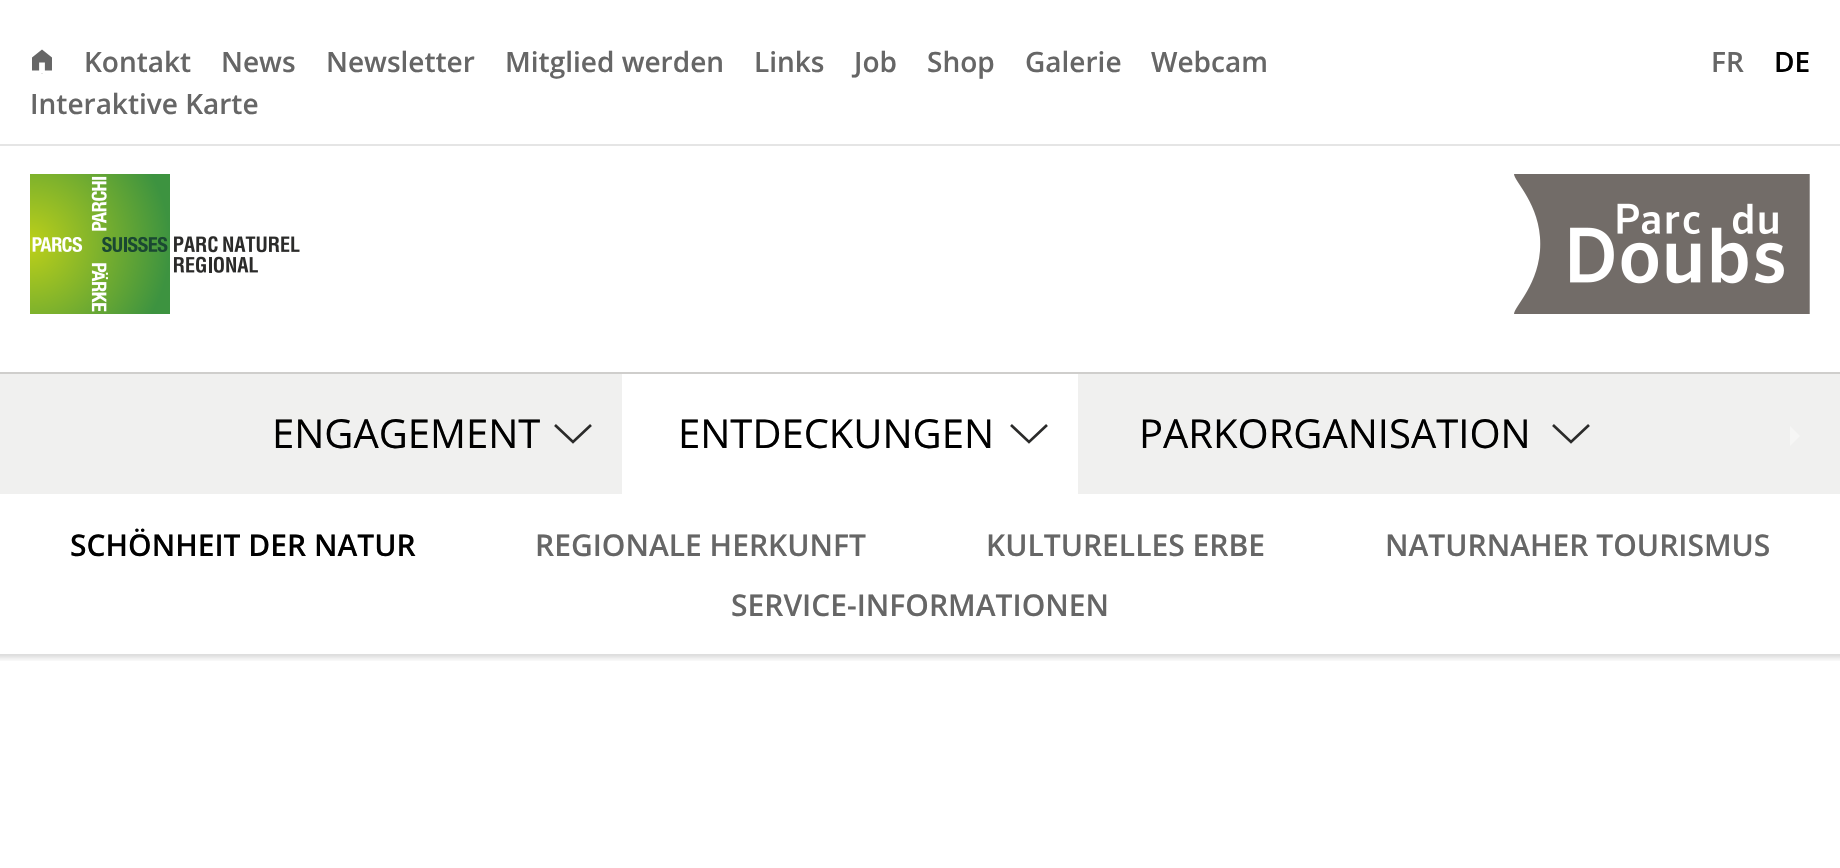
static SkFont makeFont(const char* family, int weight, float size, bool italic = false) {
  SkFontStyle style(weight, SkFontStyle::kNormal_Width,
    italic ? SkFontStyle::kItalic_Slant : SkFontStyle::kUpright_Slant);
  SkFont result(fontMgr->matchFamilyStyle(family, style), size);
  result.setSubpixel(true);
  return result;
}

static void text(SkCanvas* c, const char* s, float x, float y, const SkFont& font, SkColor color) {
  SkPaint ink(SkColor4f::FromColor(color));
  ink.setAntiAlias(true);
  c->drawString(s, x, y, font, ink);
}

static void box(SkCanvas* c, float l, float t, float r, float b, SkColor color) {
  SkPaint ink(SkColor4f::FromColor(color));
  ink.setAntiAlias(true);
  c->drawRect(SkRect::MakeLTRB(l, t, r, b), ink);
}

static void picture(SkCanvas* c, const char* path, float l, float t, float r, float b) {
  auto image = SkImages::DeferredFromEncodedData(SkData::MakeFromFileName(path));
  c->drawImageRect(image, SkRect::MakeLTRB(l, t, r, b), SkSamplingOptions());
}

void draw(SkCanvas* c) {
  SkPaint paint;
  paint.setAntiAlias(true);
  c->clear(0xffffffff);
  box(c, 0, 144, 1840, 146, 0xffe5e5e5);
  picture(c, "img_01.png", 32, 49, 52, 74);
  SkFont face1 = makeFont("Open Sans", 600, 28);
  text(c, "Kontakt", 84, 72, face1, 0xff666666);
  text(c, "News", 221, 72, face1, 0xff666666);
  text(c, "Newsletter", 326, 72, face1, 0xff666666);
  text(c, "Mitglied werden", 505, 72, face1, 0xff666666);
  text(c, "Links", 754, 72, face1, 0xff666666);
  text(c, "Job", 854, 72, face1, 0xff666666);
  text(c, "Shop", 927, 72, face1, 0xff666666);
  text(c, "Galerie", 1025, 72, face1, 0xff666666);
  text(c, "Webcam", 1151, 72, face1, 0xff666666);
  text(c, "Interaktive Karte", 30, 114, face1, 0xff666666);
  text(c, "FR", 1711, 72, face1, 0xff666666);
  text(c, "DE", 1774, 72, face1, 0xff000000);
  picture(c, "img_02.png", 30, 174, 300, 314);
  picture(c, "img_03.png", 1514, 174, 1810, 314);
  box(c, 0, 372, 1840, 374, 0xffcfcecc);
  box(c, 0, 374, 1840, 494, 0xfff0f0ef);
  box(c, 622, 374, 1078, 494, 0xffffffff);
  paint.setStyle(SkPaint::kStroke_Style);
  paint.setStrokeWidth(2.7f);
  paint.setColor(0xff2b2b2a);
  c->drawPath(SkPathBuilder().moveTo(1047, 425).lineTo(1029, 442).lineTo(1011, 425).detach(), paint);
  SkFont face2 = makeFont("Open Sans", 400, 40);
  text(c, "ENTDECKUNGEN", 678, 448, face2, 0xff000000);
  paint.setStyle(SkPaint::kFill_Style);
  paint.setColor(0xfff6f6f5);
  c->drawPath(SkPathBuilder().moveTo(1790, 446).lineTo(1790, 426).lineTo(1800, 436).close().detach(), paint);
  SkFont face3 = makeFont("Open Sans", 600, 30);
  text(c, "SCHÖNHEIT DER NATUR", 70, 556, face3, 0xff000000);
  text(c, "REGIONALE HERKUNFT", 535, 556, face3, 0xff666666);
  text(c, "KULTURELLES ERBE", 986, 556, face3, 0xff666666);
  text(c, "NATURNAHER TOURISMUS", 1385, 556, face3, 0xff666666);
  text(c, "SERVICE-INFORMATIONEN", 731, 616, face3, 0xff666666);
  picture(c, "img_04.png", 0, 654, 1840, 661);
  paint.setStyle(SkPaint::kStroke_Style);
  paint.setColor(0xff2b2b2a);
  c->drawPath(SkPathBuilder().moveTo(591, 425).lineTo(573, 442).lineTo(555, 425).detach(), paint);
  text(c, "ENGAGEMENT", 272, 448, face2, 0xff000000);
  c->drawPath(SkPathBuilder().moveTo(1589, 425).lineTo(1571, 442).lineTo(1553, 425).detach(), paint);
  text(c, "PARKORGANISATION", 1139, 448, face2, 0xff000000);
}
